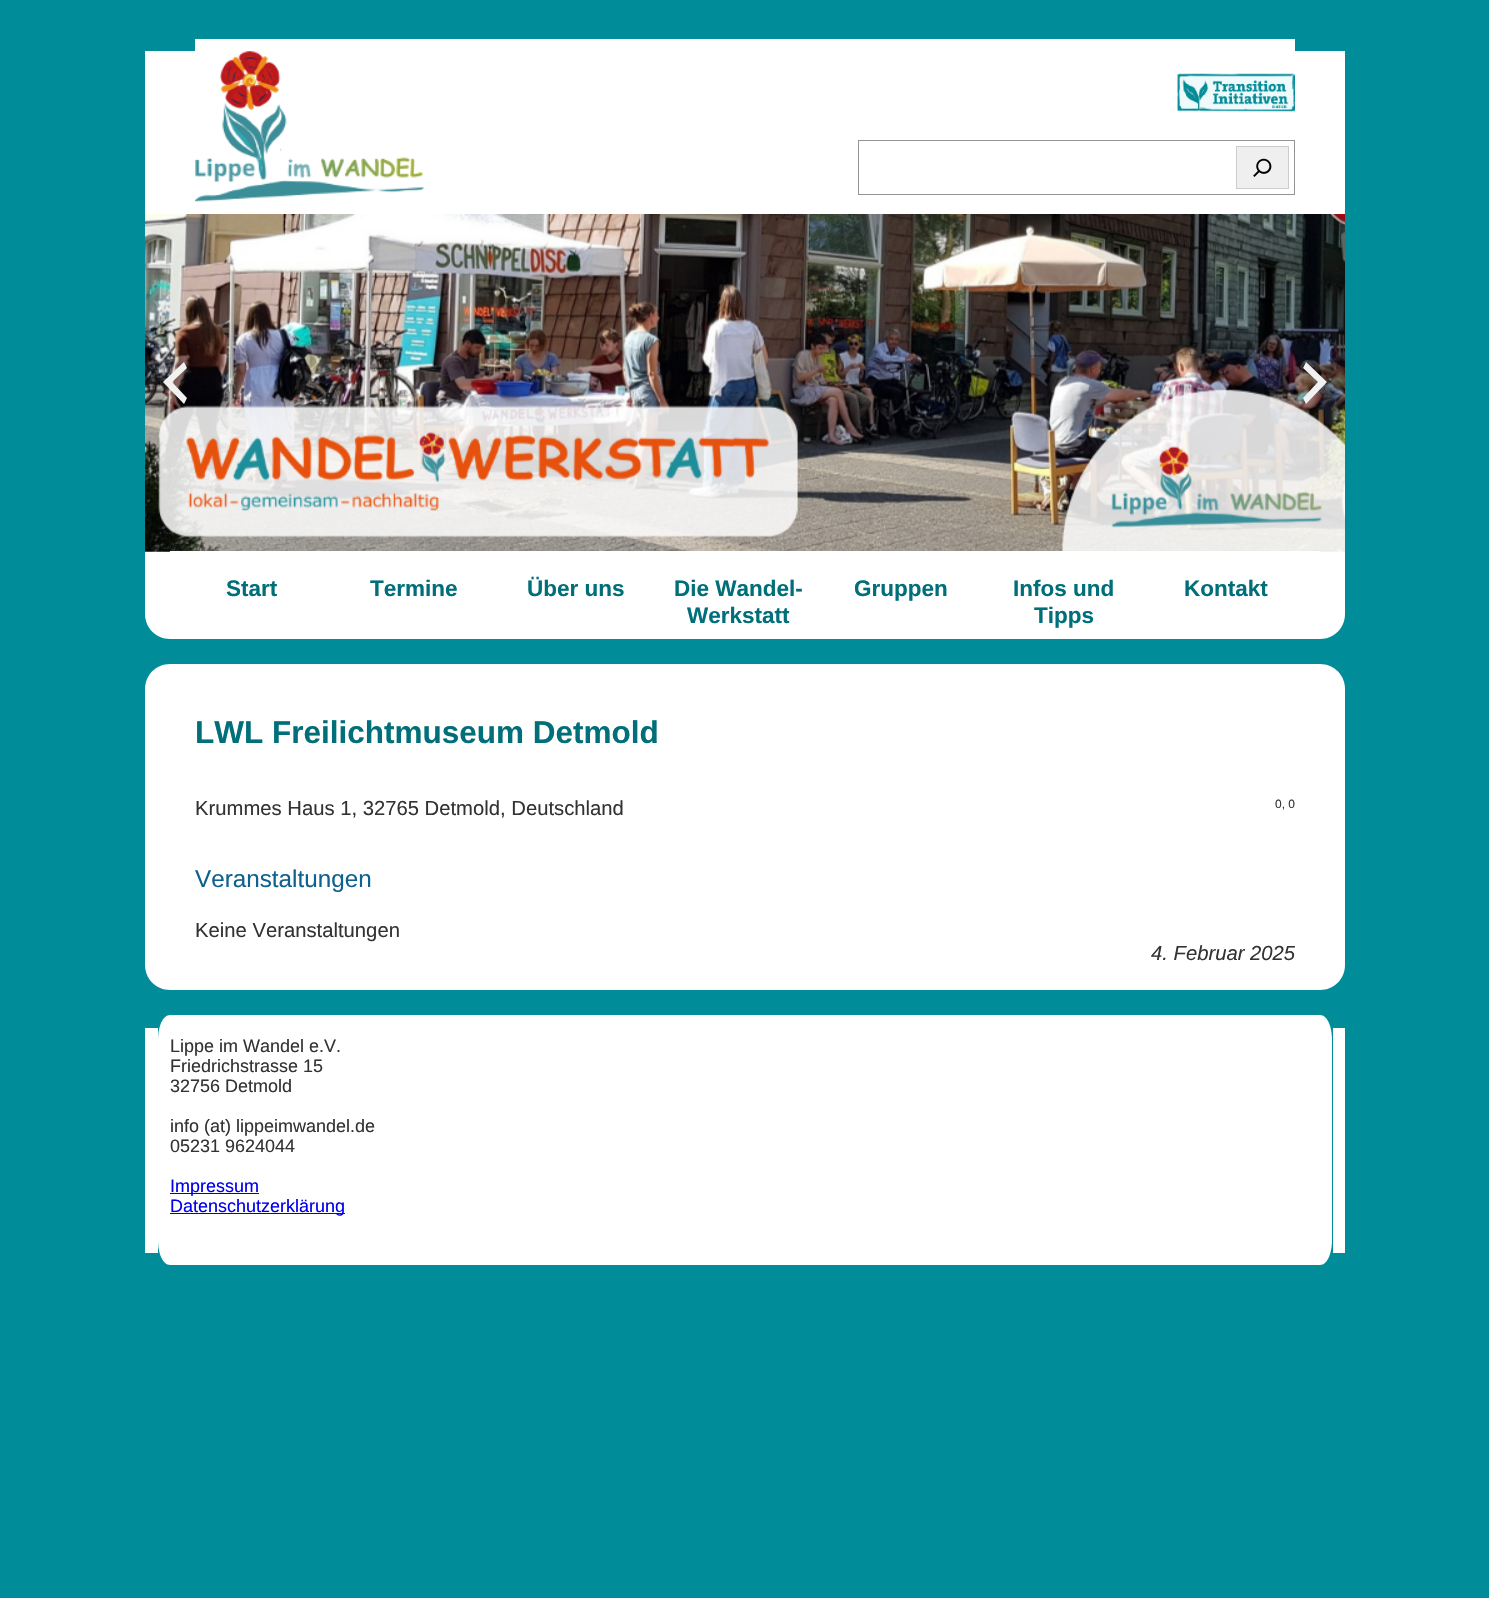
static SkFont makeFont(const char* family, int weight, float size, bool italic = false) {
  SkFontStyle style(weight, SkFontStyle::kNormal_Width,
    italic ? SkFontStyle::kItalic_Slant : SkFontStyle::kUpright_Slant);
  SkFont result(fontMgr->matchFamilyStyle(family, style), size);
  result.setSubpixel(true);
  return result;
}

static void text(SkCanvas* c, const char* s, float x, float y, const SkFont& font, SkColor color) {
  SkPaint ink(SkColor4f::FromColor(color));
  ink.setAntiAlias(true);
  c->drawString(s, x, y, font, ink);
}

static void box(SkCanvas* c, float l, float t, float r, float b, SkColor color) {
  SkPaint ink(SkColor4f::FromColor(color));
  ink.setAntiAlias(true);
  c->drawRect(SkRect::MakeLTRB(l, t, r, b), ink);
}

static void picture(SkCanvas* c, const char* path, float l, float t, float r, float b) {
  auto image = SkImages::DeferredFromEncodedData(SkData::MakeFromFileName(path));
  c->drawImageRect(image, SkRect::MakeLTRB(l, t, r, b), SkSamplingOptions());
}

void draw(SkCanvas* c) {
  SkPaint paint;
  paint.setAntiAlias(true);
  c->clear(0xff008d99);
  box(c, 195, 39, 1295, 214, 0xffffffff);
  picture(c, "img_01.png", 195, 51, 424, 202);
  box(c, 1295, 51, 1345, 214, 0xffffffff);
  box(c, 145, 51, 195, 214, 0xffffffff);
  picture(c, "img_02.png", 1177, 73, 1295, 112);
  paint.setStyle(SkPaint::kStroke_Style);
  paint.setStrokeWidth(1);
  paint.setColor(0xff949494);
  c->drawRect(SkRect::MakeLTRB(858.5f, 140.5f, 1294.5f, 194.5f), paint);
  paint.setStyle(SkPaint::kFill_Style);
  paint.setColor(0xffefefef);
  c->drawRect(SkRect::MakeLTRB(1236.5f, 146.5f, 1288.5f, 188.5f), paint);
  paint.setStyle(SkPaint::kStroke_Style);
  paint.setColor(0xffcccccc);
  c->drawRect(SkRect::MakeLTRB(1236.5f, 146.5f, 1288.5f, 188.5f), paint);
  picture(c, "img_03.png", 1253, 158, 1272, 177);
  paint.setStyle(SkPaint::kFill_Style);
  paint.setColor(0xffffffff);
  c->drawPath(SkPathBuilder().moveTo(145, 551).lineTo(1345, 551).lineTo(1345, 614).cubicTo(1345, 628, 1334, 639, 1320, 639).lineTo(170, 639).cubicTo(156, 639, 145, 628, 145, 614).close().detach(), paint);
  picture(c, "img_04.png", 145, 214, 1345, 552);
  picture(c, "img_05.png", 145, 550, 1345, 552);
  paint.setColor(0xfff1f1f1);
  c->drawPath(SkPathBuilder().moveTo(187, 368).lineTo(172, 382).lineTo(187, 398).lineTo(184, 404).lineTo(163, 382).lineTo(184, 362).close().detach(), paint);
  c->drawPath(SkPathBuilder().moveTo(1303, 398).lineTo(1318, 382).lineTo(1303, 368).lineTo(1306, 362).lineTo(1327, 382).lineTo(1306, 404).close().detach(), paint);
  box(c, 170, 551, 1320, 552, 0xffffffff);
  SkFont face1 = makeFont("Liberation Sans", 700, 22.5f);
  text(c, "Start", 226, 596, face1, 0xff006f79);
  text(c, "Termine", 370, 596, face1, 0xff006f79);
  text(c, "Über uns", 527, 596, face1, 0xff006f79);
  text(c, "Die Wandel-", 674, 596, face1, 0xff006f79);
  text(c, "Werkstatt", 687, 623, face1, 0xff006f79);
  text(c, "Gruppen", 854, 596, face1, 0xff006f79);
  text(c, "Infos und", 1013, 596, face1, 0xff006f79);
  text(c, "Tipps", 1034, 623, face1, 0xff006f79);
  text(c, "Kontakt", 1184, 596, face1, 0xff006f79);
  paint.setColor(0xffffffff);
  c->drawPath(SkPathBuilder().moveTo(170, 664).lineTo(1320, 664).cubicTo(1334, 664, 1345, 675, 1345, 689).lineTo(1345, 764).lineTo(145, 764).lineTo(145, 689).cubicTo(145, 675, 156, 664, 170, 664).close().detach(), paint);
  SkFont face2 = makeFont("Liberation Sans", 700, 31.5f);
  text(c, "LWL Freilichtmuseum Detmold", 195, 743, face2, 0xff006f79);
  c->drawPath(SkPathBuilder().moveTo(145, 764).lineTo(1345, 764).lineTo(1345, 965).cubicTo(1345, 979, 1334, 990, 1320, 990).lineTo(170, 990).cubicTo(156, 990, 145, 979, 145, 965).close().detach(), paint);
  SkFont face3 = makeFont("Liberation Sans", 400, 20.25f);
  text(c, "Krummes Haus 1, 32765 Detmold, Deutschland", 195, 815, face3, 0xff333333);
  SkFont face4 = makeFont("Liberation Sans", 400, 12);
  text(c, "0, 0", 1275, 808, face4, 0xff333333);
  SkFont face5 = makeFont("Liberation Sans", 400, 24.25f);
  text(c, "Veranstaltungen", 195, 887, face5, 0xff0f618e);
  text(c, "Keine Veranstaltungen", 195, 937, face3, 0xff333333);
  SkFont face6 = makeFont("Liberation Sans", 400, 20.25f, true);
  text(c, "4. Februar 2025", 1151, 960, face6, 0xff333333);
  c->drawPath(SkPathBuilder().moveTo(170, 1015).lineTo(1320, 1015).cubicTo(1327, 1015, 1332, 1026, 1332, 1040).lineTo(1332, 1240).cubicTo(1332, 1254, 1327, 1265, 1320, 1265).lineTo(170, 1265).cubicTo(163, 1265, 158, 1254, 158, 1240).lineTo(158, 1040).cubicTo(158, 1026, 163, 1015, 170, 1015).close().detach(), paint);
  box(c, 1333, 1028, 1345, 1253, 0xffffffff);
  box(c, 145, 1028, 158, 1253, 0xffffffff);
  SkFont face7 = makeFont("Liberation Sans", 400, 18);
  text(c, "Lippe im Wandel e.V.", 170, 1052, face7, 0xff333333);
  text(c, "Friedrichstrasse 15", 170, 1072, face7, 0xff333333);
  text(c, "32756 Detmold", 170, 1092, face7, 0xff333333);
  text(c, "info (at) lippeimwandel.de", 170, 1132, face7, 0xff333333);
  text(c, "05231 9624044", 170, 1152, face7, 0xff333333);
  box(c, 170, 1193, 259, 1194, 0xff0000ee);
  text(c, "Impressum", 170, 1192, face7, 0xff0000ee);
  box(c, 170, 1213, 345, 1214, 0xff0000ee);
  text(c, "Datenschutzerklärung", 170, 1212, face7, 0xff0000ee);
}
